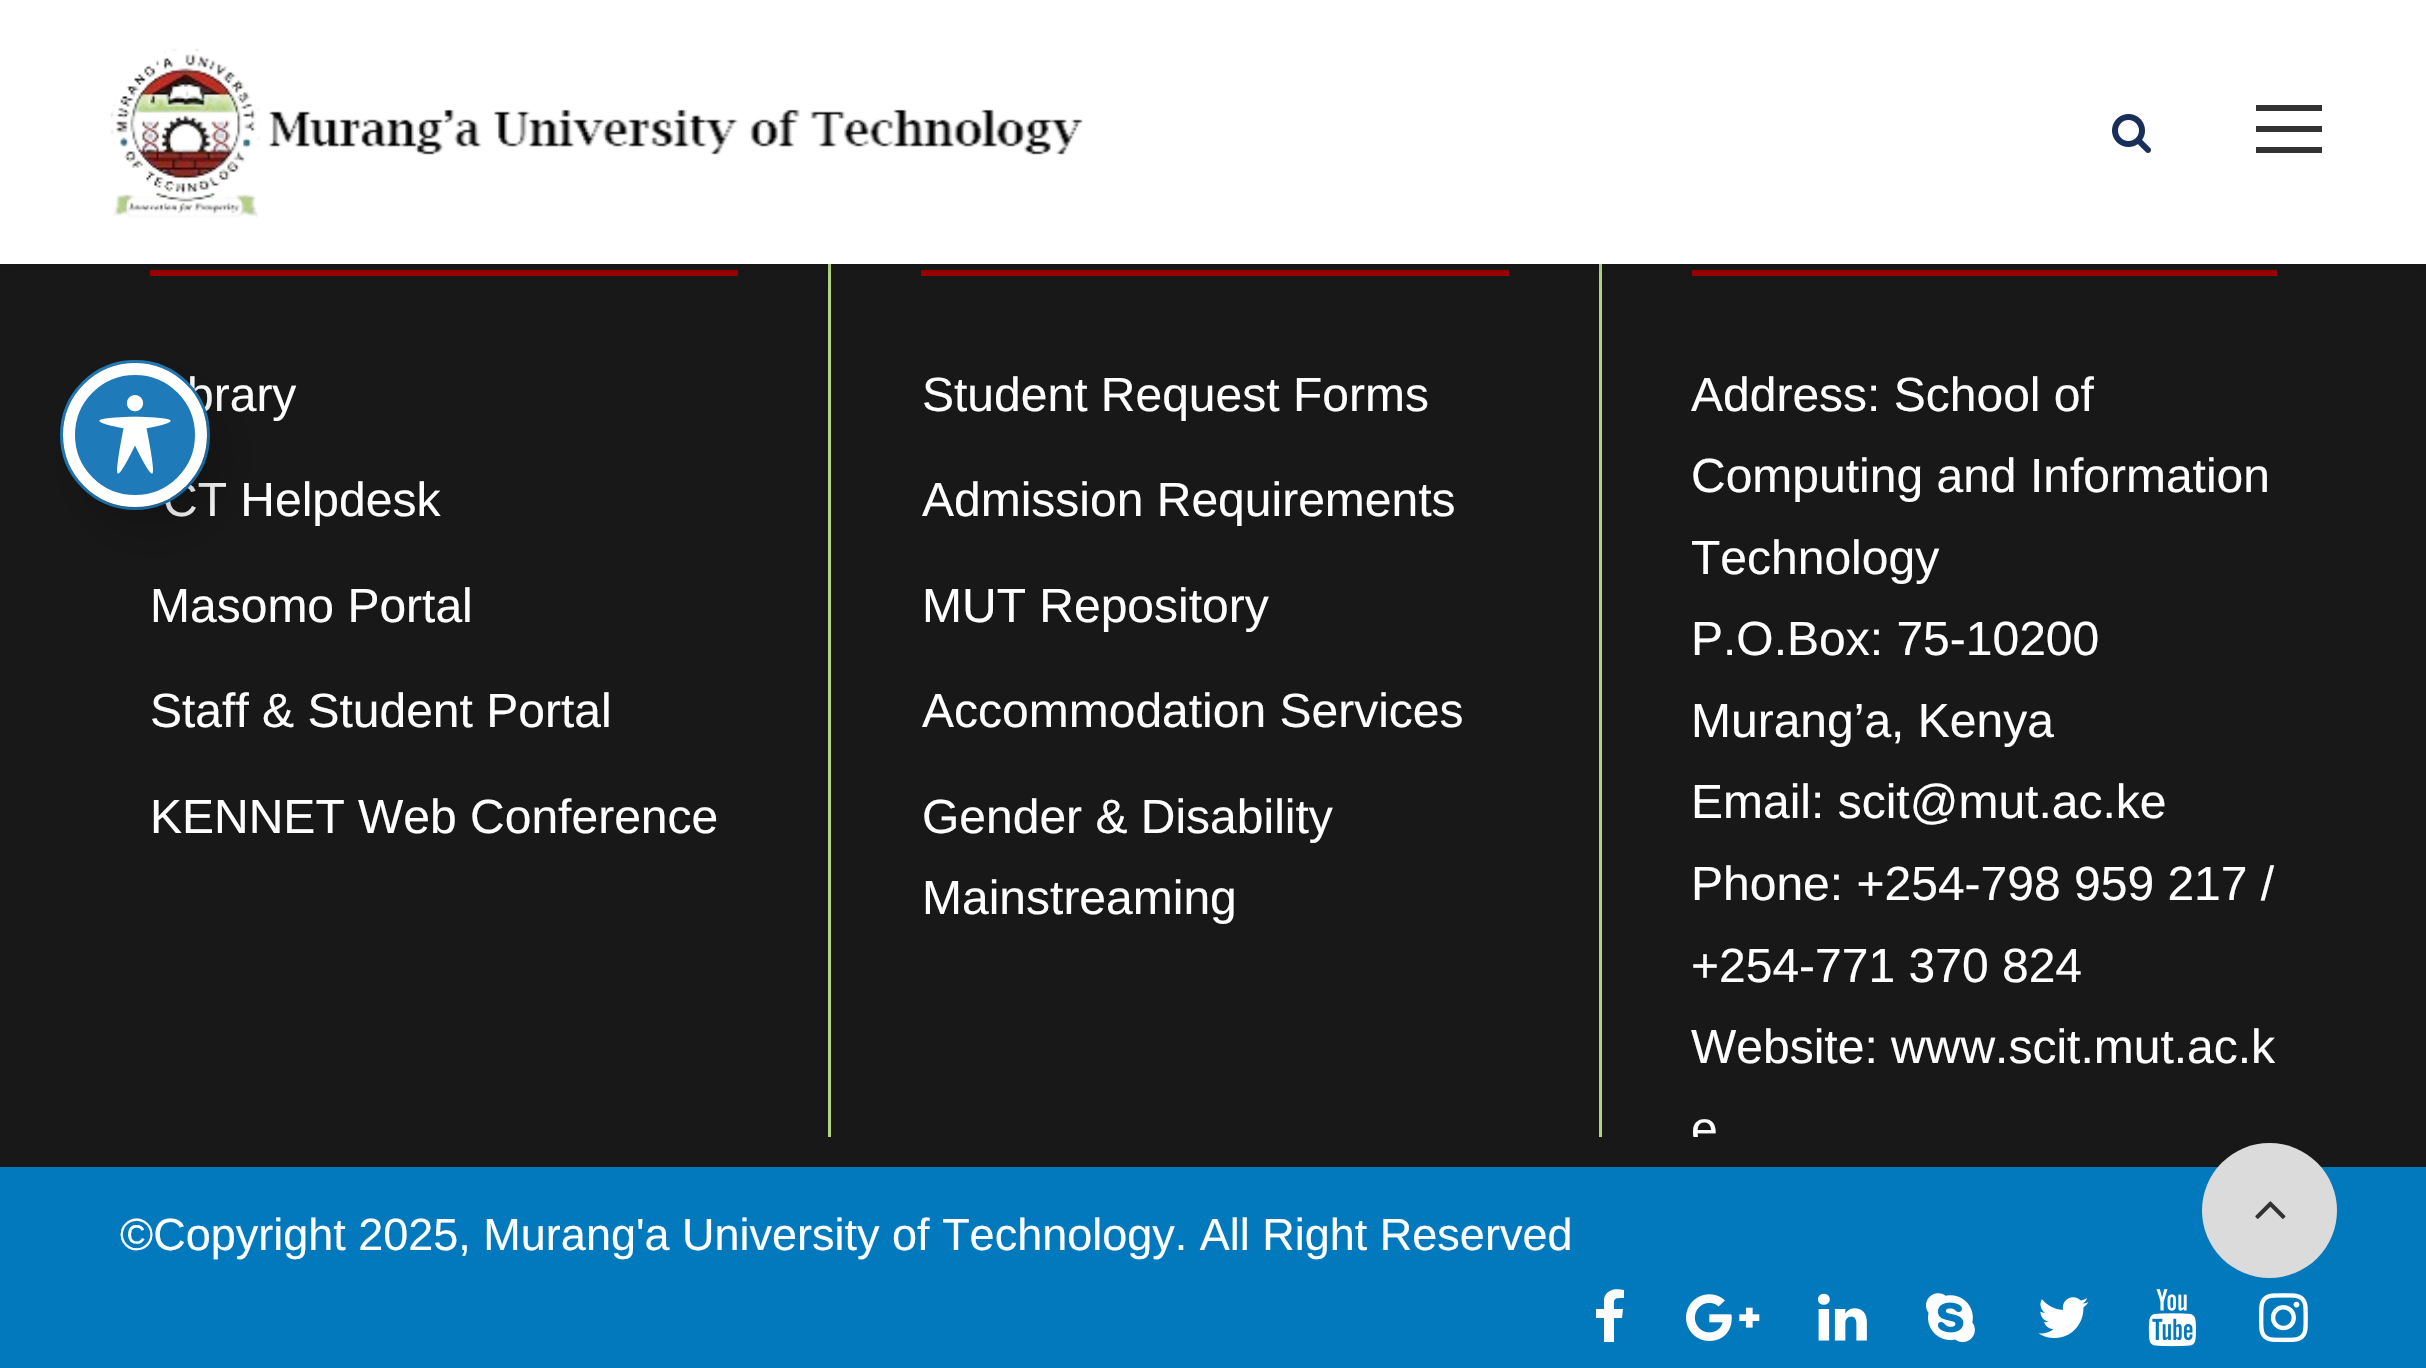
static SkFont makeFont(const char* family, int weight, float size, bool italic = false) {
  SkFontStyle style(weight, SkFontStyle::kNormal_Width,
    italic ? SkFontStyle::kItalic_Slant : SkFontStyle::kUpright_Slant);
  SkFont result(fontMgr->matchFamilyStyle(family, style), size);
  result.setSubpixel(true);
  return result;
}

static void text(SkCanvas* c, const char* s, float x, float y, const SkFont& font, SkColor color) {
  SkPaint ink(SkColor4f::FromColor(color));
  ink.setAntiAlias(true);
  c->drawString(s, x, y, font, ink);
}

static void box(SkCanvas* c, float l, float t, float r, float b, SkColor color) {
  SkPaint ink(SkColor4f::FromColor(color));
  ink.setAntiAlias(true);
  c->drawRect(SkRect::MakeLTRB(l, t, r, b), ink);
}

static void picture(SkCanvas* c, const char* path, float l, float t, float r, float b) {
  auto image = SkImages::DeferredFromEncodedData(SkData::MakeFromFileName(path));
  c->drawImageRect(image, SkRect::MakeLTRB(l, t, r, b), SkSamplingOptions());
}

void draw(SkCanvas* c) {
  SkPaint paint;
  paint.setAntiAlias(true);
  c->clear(0xff181818);
  box(c, 150, 270, 738, 276, 0xff9b0000);
  box(c, 828, 264, 831, 1137, 0xffb2d27f);
  box(c, 921, 270, 1509, 276, 0xff9b0000);
  box(c, 1599, 264, 1602, 1137, 0xffb2d27f);
  box(c, 1692, 270, 2277, 276, 0xff9b0000);
  paint.setColor(0x1a000000);
  paint.setMaskFilter(SkMaskFilter::MakeBlur(kNormal_SkBlurStyle, 6));
  c->drawRect(SkRect::MakeLTRB(0, 3, 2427, 267), paint);
  paint.setMaskFilter(nullptr);
  box(c, 0, 0, 2426, 264, 0xffffffff);
  picture(c, "img_01.png", 110, 48, 1083, 218);
  picture(c, "img_02.png", 2112, 114, 2151, 153);
  box(c, 2256, 105, 2322, 111, 0xff333333);
  box(c, 2256, 126, 2322, 132, 0xff333333);
  box(c, 2256, 147, 2322, 153, 0xff333333);
  SkFont face1 = makeFont("Liberation Sans", 400, 48);
  text(c, "brary", 187, 411, face1, 0xffffffff);
  text(c, "CT Helpdesk", 163, 516, face1, 0xffffffff);
  paint.setStyle(SkPaint::kStroke_Style);
  paint.setStrokeWidth(3);
  paint.setColor(0xff1e7ab9);
  c->drawCircle(135, 435, 73.5f, paint);
  paint.setStyle(SkPaint::kFill_Style);
  paint.setColor(0x33000000);
  paint.setMaskFilter(SkMaskFilter::MakeBlur(kNormal_SkBlurStyle, 24));
  c->drawRoundRect(SkRect::MakeLTRB(81, 387, 225, 531), 72, 72, paint);
  paint.setMaskFilter(nullptr);
  paint.setColor(0xff1e7ab9);
  c->drawCircle(135, 435, 66, paint);
  paint.setStyle(SkPaint::kStroke_Style);
  paint.setStrokeWidth(12);
  paint.setColor(0xffffffff);
  c->drawCircle(135, 435, 66, paint);
  picture(c, "img_03.png", 99, 395, 171, 474);
  text(c, "Masomo Portal", 150, 622, face1, 0xffffffff);
  text(c, "Staff & Student Portal", 150, 727, face1, 0xffffffff);
  text(c, "KENNET Web Conference", 150, 833, face1, 0xffffffff);
  text(c, "Student Request Forms", 922, 411, face1, 0xffffffff);
  text(c, "Admission Requirements", 922, 516, face1, 0xffffffff);
  text(c, "MUT Repository", 922, 622, face1, 0xffffffff);
  text(c, "Accommodation Services", 922, 727, face1, 0xffffffff);
  text(c, "Gender & Disability", 922, 833, face1, 0xffffffff);
  text(c, "Mainstreaming", 922, 914, face1, 0xffffffff);
  text(c, "Address: School of", 1691, 411, face1, 0xffffffff);
  text(c, "Computing and Information", 1691, 492, face1, 0xffffffff);
  text(c, "Technology", 1691, 574, face1, 0xffffffff);
  text(c, "P.O.Box: 75-10200", 1691, 655, face1, 0xffffffff);
  text(c, "Murang’a, Kenya", 1691, 737, face1, 0xffffffff);
  text(c, "Email: scit@mut.ac.ke", 1691, 818, face1, 0xffffffff);
  text(c, "Phone: +254-798 959 217 /", 1691, 900, face1, 0xffffffff);
  text(c, "+254-771 370 824", 1691, 982, face1, 0xffffffff);
  text(c, "Website: www.scit.mut.ac.k", 1691, 1063, face1, 0xffffffff);
  c->save();
  c->clipRect(SkRect::MakeLTRB(0, 165, 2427, 1137));
  text(c, "e", 1691, 1145, face1, 0xffffffff);
  c->restore();
  box(c, 0, 1167, 2426, 1368, 0xff0279bc);
  SkFont face2 = makeFont("Liberation Sans", 400, 45);
  text(c, "©Copyright 2025, Murang'a University of Technology. All Right Reserved", 120, 1250, face2, 0xffffffff);
  paint.setStyle(SkPaint::kFill_Style);
  c->drawPath(SkPathBuilder().moveTo(1624, 1290).lineTo(1624, 1298).cubicTo(1613, 1298, 1614, 1298, 1614, 1309).lineTo(1623, 1309).lineTo(1622, 1318).lineTo(1614, 1318).lineTo(1614, 1342).lineTo(1604, 1342).lineTo(1604, 1318).lineTo(1596, 1318).lineTo(1596, 1309).lineTo(1604, 1309).lineTo(1604, 1299).cubicTo(1606, 1289, 1616, 1288, 1624, 1290).close().detach(), paint);
  picture(c, "img_04.png", 1686, 1294, 1760, 1341);
  picture(c, "img_05.png", 1818, 1293, 1867, 1341);
  picture(c, "img_06.png", 1926, 1293, 1975, 1343);
  picture(c, "img_07.png", 2038, 1297, 2089, 1338);
  picture(c, "img_08.png", 2148, 1289, 2196, 1347);
  picture(c, "img_09.png", 2259, 1293, 2308, 1343);
  paint.setColor(0xffdbdbdb);
  c->drawCircle(2269.5f, 1210.5f, 67.5f, paint);
  picture(c, "img_10.png", 2255, 1201, 2286, 1219);
}
